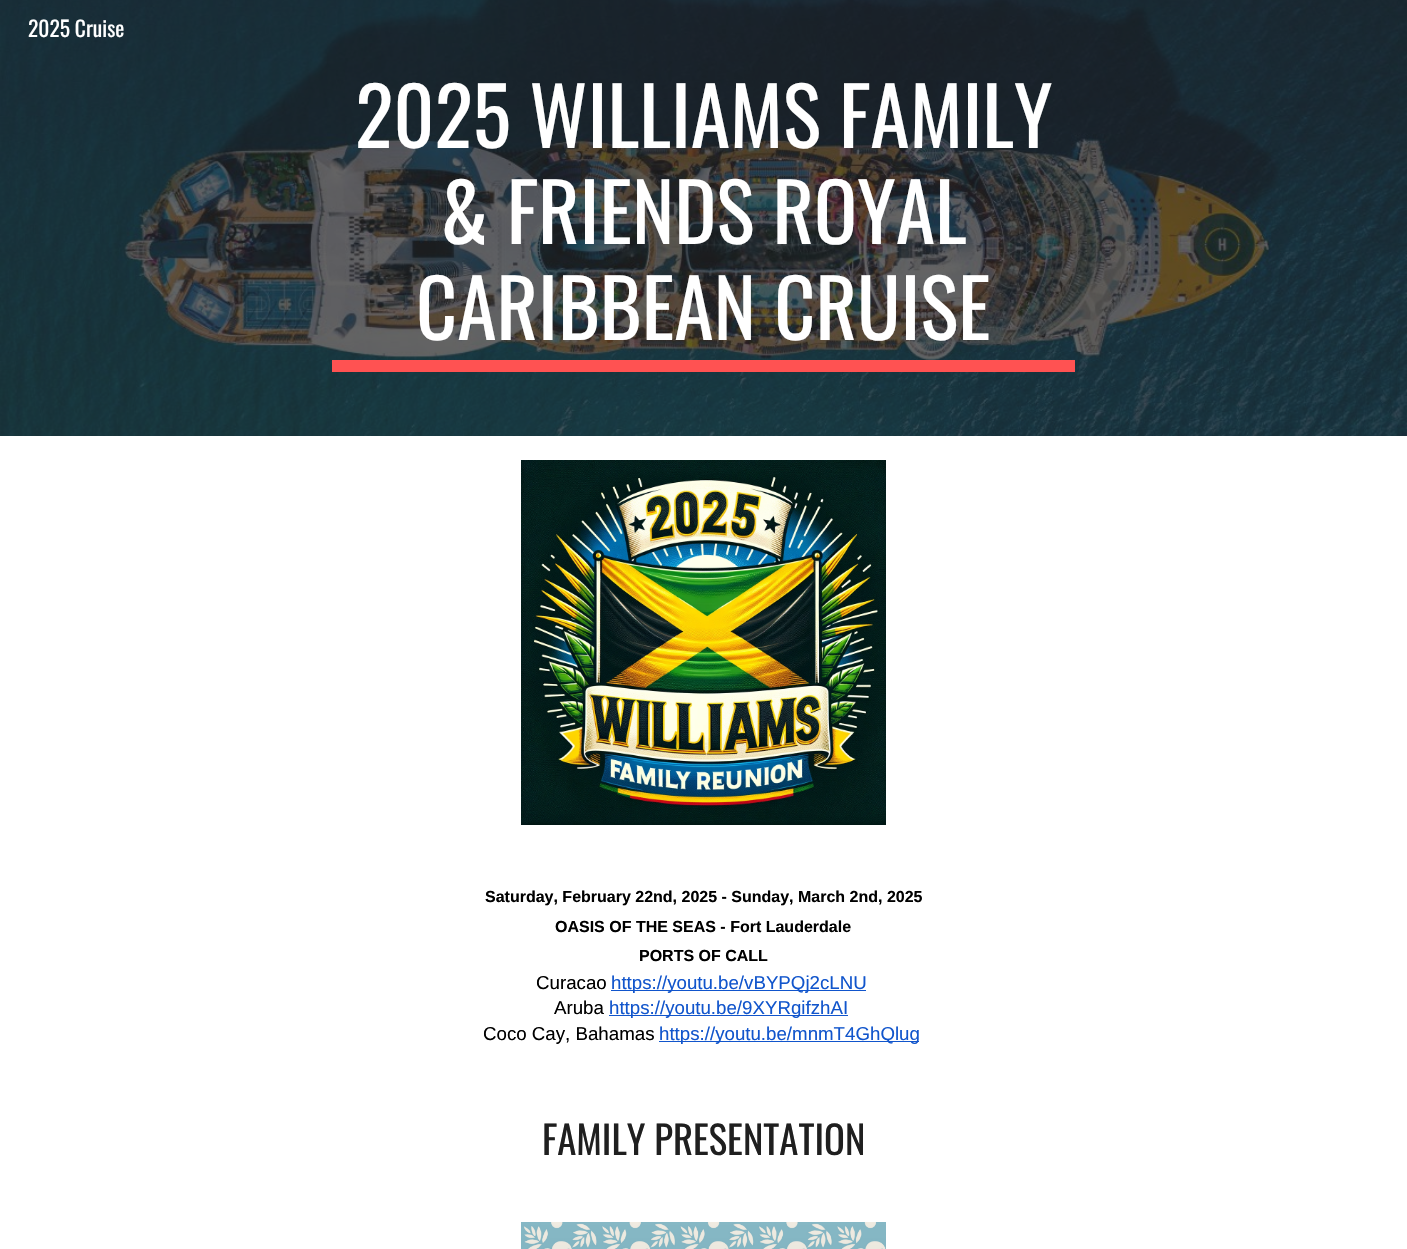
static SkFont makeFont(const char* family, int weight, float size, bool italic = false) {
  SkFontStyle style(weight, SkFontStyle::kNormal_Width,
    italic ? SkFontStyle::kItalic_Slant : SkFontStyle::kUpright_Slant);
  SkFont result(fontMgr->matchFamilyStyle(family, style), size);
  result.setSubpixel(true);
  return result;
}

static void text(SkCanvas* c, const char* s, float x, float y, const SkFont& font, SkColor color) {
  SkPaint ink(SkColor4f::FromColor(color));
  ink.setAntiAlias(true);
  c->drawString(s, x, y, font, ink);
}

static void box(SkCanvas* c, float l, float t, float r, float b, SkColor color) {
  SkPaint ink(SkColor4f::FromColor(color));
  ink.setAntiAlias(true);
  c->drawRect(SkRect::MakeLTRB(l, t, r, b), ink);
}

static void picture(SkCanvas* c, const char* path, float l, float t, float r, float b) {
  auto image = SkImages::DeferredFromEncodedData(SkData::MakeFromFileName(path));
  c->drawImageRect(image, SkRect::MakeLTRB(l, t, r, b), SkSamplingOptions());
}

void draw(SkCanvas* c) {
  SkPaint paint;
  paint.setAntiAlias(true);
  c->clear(0xffffffff);
  picture(c, "img_01.png", 0, 0, 1407, 436);
  SkFont face1 = makeFont("Oswald", 400, 21.5f);
  text(c, "2025 Cruise", 28, 37, face1, 0xffffffff);
  SkFont face2 = makeFont("Oswald", 400, 80);
  text(c, "2025 WILLIAMS FAMILY", 355, 148, face2, 0xffffffff);
  text(c, "& FRIENDS ROYAL", 440, 244, face2, 0xffffffff);
  text(c, "CARIBBEAN CRUISE", 416, 340, face2, 0xffffffff);
  box(c, 332, 360, 1075, 372, 0xffff5252);
  picture(c, "img_02.png", 521, 460, 886, 825);
  SkFont face3 = makeFont("Liberation Sans", 700, 16);
  text(c, "Saturday, February 22nd, 2025 - Sunday, March 2nd, 2025", 485, 902, face3, 0xff000000);
  text(c, "OASIS OF THE SEAS - Fort Lauderdale", 555, 932, face3, 0xff000000);
  text(c, "PORTS OF CALL", 639, 961, face3, 0xff000000);
  SkFont face4 = makeFont("Liberation Sans", 400, 18.7f);
  text(c, "Curacao", 536, 989, face4, 0xff000000);
  box(c, 611, 990, 866, 991, 0xff1155cc);
  text(c, "https://youtu.be/vBYPQj2cLNU", 611, 989, face4, 0xff1155cc);
  text(c, "Aruba", 554, 1014, face4, 0xff000000);
  box(c, 609, 1015, 848, 1016, 0xff1155cc);
  text(c, "https://youtu.be/9XYRgifzhAI", 609, 1014, face4, 0xff1155cc);
  text(c, "Coco Cay, Bahamas", 483, 1040, face4, 0xff000000);
  box(c, 659, 1041, 919, 1042, 0xff1155cc);
  text(c, "https://youtu.be/mnmT4GhQlug", 659, 1040, face4, 0xff1155cc);
  SkFont face5 = makeFont("Oswald", 400, 38.75f);
  text(c, "FAMILY PRESENTATION", 542, 1155, face5, 0xff1f1f1f);
  picture(c, "img_03.png", 521, 1222, 886, 1249);
}
